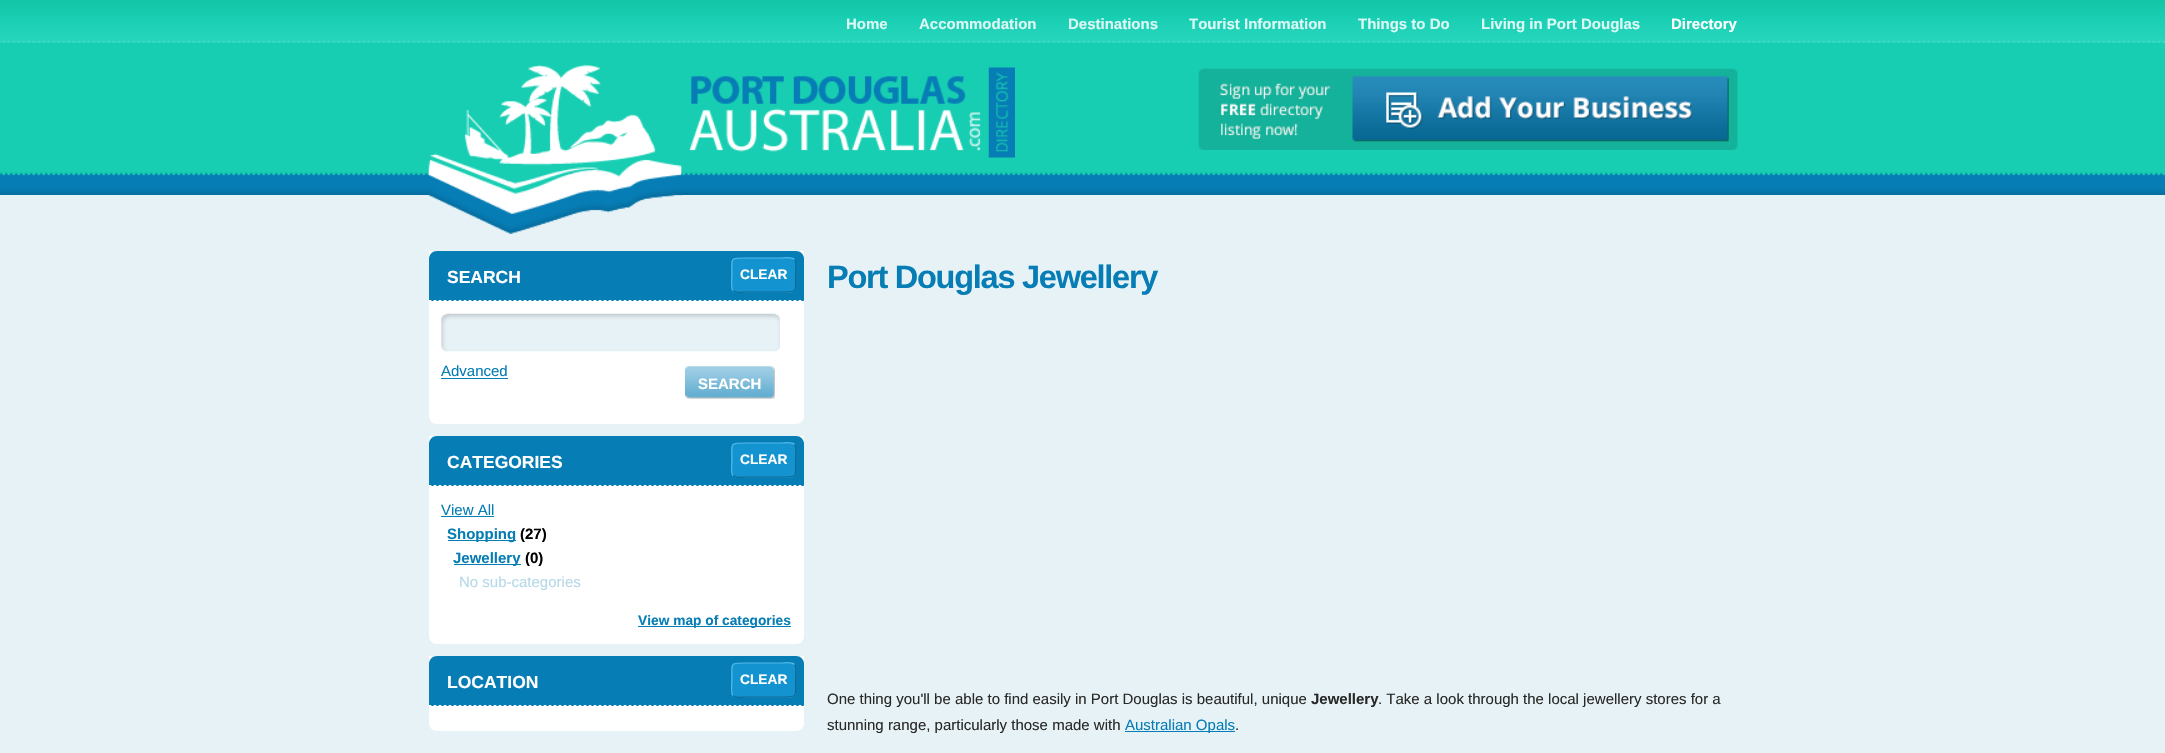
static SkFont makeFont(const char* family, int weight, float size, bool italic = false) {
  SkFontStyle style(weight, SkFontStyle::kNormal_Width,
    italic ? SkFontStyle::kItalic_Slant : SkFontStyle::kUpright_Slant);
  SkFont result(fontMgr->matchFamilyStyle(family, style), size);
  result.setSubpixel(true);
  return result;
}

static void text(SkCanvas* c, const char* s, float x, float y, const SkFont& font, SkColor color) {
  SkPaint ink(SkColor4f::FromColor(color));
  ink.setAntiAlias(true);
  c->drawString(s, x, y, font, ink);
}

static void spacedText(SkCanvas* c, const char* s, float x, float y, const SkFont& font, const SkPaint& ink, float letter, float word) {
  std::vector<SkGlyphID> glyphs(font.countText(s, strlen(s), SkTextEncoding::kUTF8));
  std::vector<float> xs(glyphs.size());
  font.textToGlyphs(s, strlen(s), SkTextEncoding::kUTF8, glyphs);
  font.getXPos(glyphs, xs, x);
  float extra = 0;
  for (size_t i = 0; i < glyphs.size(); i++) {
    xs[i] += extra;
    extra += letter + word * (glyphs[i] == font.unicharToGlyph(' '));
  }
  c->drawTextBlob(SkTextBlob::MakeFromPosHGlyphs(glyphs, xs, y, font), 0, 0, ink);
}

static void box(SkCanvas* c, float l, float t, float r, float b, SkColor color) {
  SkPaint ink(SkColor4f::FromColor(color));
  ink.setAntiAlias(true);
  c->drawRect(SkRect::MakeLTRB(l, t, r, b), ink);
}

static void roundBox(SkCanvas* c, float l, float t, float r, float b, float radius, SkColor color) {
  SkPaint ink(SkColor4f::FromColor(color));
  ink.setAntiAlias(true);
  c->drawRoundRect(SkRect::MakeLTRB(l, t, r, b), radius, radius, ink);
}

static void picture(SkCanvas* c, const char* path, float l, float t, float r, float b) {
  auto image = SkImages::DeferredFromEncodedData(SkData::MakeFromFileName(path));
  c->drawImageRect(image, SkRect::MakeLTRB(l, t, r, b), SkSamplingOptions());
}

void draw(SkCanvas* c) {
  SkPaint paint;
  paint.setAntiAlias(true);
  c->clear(0xffe7f2f7);
  box(c, 0, 42, 2165, 176, 0xff18ceb2);
  picture(c, "img_01.png", 0, 172, 2165, 195);
  picture(c, "img_02.png", 0, 0, 2165, 43);
  SkFont face1 = makeFont("Liberation Sans", 700, 15);
  text(c, "Home", 846, 29, face1, 0xffdcf8f4);
  text(c, "Accommodation", 919, 29, face1, 0xffdcf8f4);
  text(c, "Destinations", 1068, 29, face1, 0xffdcf8f4);
  text(c, "Tourist Information", 1189, 29, face1, 0xffdcf8f4);
  text(c, "Things to Do", 1358, 29, face1, 0xffdcf8f4);
  text(c, "Living in Port Douglas", 1481, 29, face1, 0xffdcf8f4);
  text(c, "Directory", 1671, 29, face1, 0xffffffff);
  picture(c, "img_03.png", 428, 65, 1015, 234);
  picture(c, "img_04.png", 1198, 68, 1738, 150);
  paint.setColor(0xffffffff);
  c->drawPath(SkPathBuilder().moveTo(429, 251).lineTo(804, 251).lineTo(804, 416).cubicTo(804, 420.5f, 800.5f, 424, 796, 424).lineTo(437, 424).cubicTo(432.5f, 424, 429, 420.5f, 429, 416).close().detach(), paint);
  paint.setColor(0xff067db5);
  c->drawPath(SkPathBuilder().moveTo(437, 251).lineTo(796, 251).cubicTo(800.5f, 251, 804, 254.5f, 804, 259).lineTo(804, 301).lineTo(429, 301).lineTo(429, 259).cubicTo(429, 254.5f, 432.5f, 251, 437, 251).close().detach(), paint);
  picture(c, "img_05.png", 429, 300, 804, 301);
  SkFont face2 = makeFont("Liberation Sans", 700, 17.5f);
  text(c, "SEARCH", 447, 283, face2, 0xffffffff);
  roundBox(c, 731, 258, 796, 293, 5, 0xff1394d1);
  paint.setStyle(SkPaint::kStroke_Style);
  paint.setStrokeWidth(1.2f);
  paint.setColor(0xff0e6b96);
  c->drawPath(SkPathBuilder().moveTo(794.5f, 259.5f).cubicTo(797, 262, 795.5f, 272, 795.5f, 275).cubicTo(795.5f, 292, 798.5f, 292, 782, 292).lineTo(745.5f, 292).cubicTo(743.5f, 292, 736, 293.5f, 733, 290.5f).detach(), paint);
  paint.setColor(0xff51b8e9);
  c->drawPath(SkPathBuilder().moveTo(733, 290.5f).cubicTo(730.5f, 288, 732, 278, 732, 275).cubicTo(732, 258, 729, 258, 745.5f, 258).lineTo(782, 258).cubicTo(784, 258, 791.5f, 256.5f, 794.5f, 259.5f).detach(), paint);
  SkFont face3 = makeFont("Liberation Sans", 700, 13.75f);
  text(c, "CLEAR", 740, 279, face3, 0xffffffff);
  picture(c, "img_06.png", 441, 313, 780, 352);
  SkFont face4 = makeFont("Liberation Sans", 400, 15);
  text(c, "Advanced", 441, 376, face4, 0xff067db5);
  box(c, 441, 378, 508, 379, 0xff067db5);
  picture(c, "img_07.png", 685, 366, 775, 399);
  text(c, "SEARCH", 698, 389, face1, 0xffffffff);
  paint.setStyle(SkPaint::kFill_Style);
  paint.setColor(0xffffffff);
  c->drawPath(SkPathBuilder().moveTo(429, 436).lineTo(804, 436).lineTo(804, 636).cubicTo(804, 640.5f, 800.5f, 644, 796, 644).lineTo(437, 644).cubicTo(432.5f, 644, 429, 640.5f, 429, 636).close().detach(), paint);
  paint.setColor(0xff067db5);
  c->drawPath(SkPathBuilder().moveTo(437, 436).lineTo(796, 436).cubicTo(800.5f, 436, 804, 439.5f, 804, 444).lineTo(804, 486).lineTo(429, 486).lineTo(429, 444).cubicTo(429, 439.5f, 432.5f, 436, 437, 436).close().detach(), paint);
  picture(c, "img_05.png", 429, 485, 804, 486);
  text(c, "CATEGORIES", 447, 468, face2, 0xffffffff);
  roundBox(c, 731, 443, 796, 478, 5, 0xff1394d1);
  paint.setStyle(SkPaint::kStroke_Style);
  paint.setColor(0xff0e6b96);
  c->drawPath(SkPathBuilder().moveTo(794.5f, 444.5f).cubicTo(797, 447, 795.5f, 457, 795.5f, 460).cubicTo(795.5f, 477, 798.5f, 477, 782, 477).lineTo(745.5f, 477).cubicTo(743.5f, 477, 736, 478.5f, 733, 475.5f).detach(), paint);
  paint.setColor(0xff51b8e9);
  c->drawPath(SkPathBuilder().moveTo(733, 475.5f).cubicTo(730.5f, 473, 732, 463, 732, 460).cubicTo(732, 443, 729, 443, 745.5f, 443).lineTo(782, 443).cubicTo(784, 443, 791.5f, 441.5f, 794.5f, 444.5f).detach(), paint);
  text(c, "CLEAR", 740, 464, face3, 0xffffffff);
  text(c, "View All", 441, 515, face4, 0xff067db5);
  box(c, 441, 516, 494, 517, 0xff067db5);
  box(c, 448, 540, 516, 541, 0xff067db5);
  text(c, "Shopping", 447, 539, face1, 0xff067db5);
  text(c, "(27)", 520, 539, face1, 0xff000000);
  box(c, 454, 564, 521, 565, 0xff067db5);
  text(c, "Jewellery", 453, 563, face1, 0xff067db5);
  text(c, "(0)", 525, 563, face1, 0xff000000);
  text(c, "No sub-categories", 459, 587, face4, 0xffb6d9e9);
  box(c, 638, 626, 791, 627, 0xff067db5);
  text(c, "View map of categories", 638, 625, face3, 0xff067db5);
  paint.setStyle(SkPaint::kFill_Style);
  paint.setColor(0xffffffff);
  c->drawPath(SkPathBuilder().moveTo(429, 656).lineTo(804, 656).lineTo(804, 723).cubicTo(804, 727.5f, 800.5f, 731, 796, 731).lineTo(437, 731).cubicTo(432.5f, 731, 429, 727.5f, 429, 723).close().detach(), paint);
  paint.setColor(0xff067db5);
  c->drawPath(SkPathBuilder().moveTo(437, 656).lineTo(796, 656).cubicTo(800.5f, 656, 804, 659.5f, 804, 664).lineTo(804, 706).lineTo(429, 706).lineTo(429, 664).cubicTo(429, 659.5f, 432.5f, 656, 437, 656).close().detach(), paint);
  picture(c, "img_05.png", 429, 705, 804, 706);
  text(c, "LOCATION", 447, 688, face2, 0xffffffff);
  roundBox(c, 731, 663, 796, 698, 5, 0xff1394d1);
  paint.setStyle(SkPaint::kStroke_Style);
  paint.setColor(0xff0e6b96);
  c->drawPath(SkPathBuilder().moveTo(794.5f, 664.5f).cubicTo(797, 667, 795.5f, 677, 795.5f, 680).cubicTo(795.5f, 697, 798.5f, 697, 782, 697).lineTo(745.5f, 697).cubicTo(743.5f, 697, 736, 698.5f, 733, 695.5f).detach(), paint);
  paint.setColor(0xff51b8e9);
  c->drawPath(SkPathBuilder().moveTo(733, 695.5f).cubicTo(730.5f, 693, 732, 683, 732, 680).cubicTo(732, 663, 729, 663, 745.5f, 663).lineTo(782, 663).cubicTo(784, 663, 791.5f, 661.5f, 794.5f, 664.5f).detach(), paint);
  text(c, "CLEAR", 740, 684, face3, 0xffffffff);
  SkFont face5 = makeFont("Liberation Sans", 700, 32.5f);
  paint.setStyle(SkPaint::kFill_Style);
  paint.setColor(0xff067db5);
  spacedText(c, "Port Douglas Jewellery", 827, 288, face5, paint, -1.25f, 0);
  text(c, "One thing you'll be able to find easily in Port Douglas is beautiful, unique", 827, 704, face4, 0xff292a27);
  text(c, "Jewellery", 1311, 704, face1, 0xff292a27);
  text(c, ". Take a look through the local jewellery stores for a", 1378, 704, face4, 0xff292a27);
  text(c, "stunning range, particularly those made with", 827, 730, face4, 0xff292a27);
  box(c, 1125, 731, 1235, 732, 0xff067db5);
  text(c, "Australian Opals", 1125, 730, face4, 0xff067db5);
  text(c, ".", 1235, 730, face4, 0xff292a27);
}
